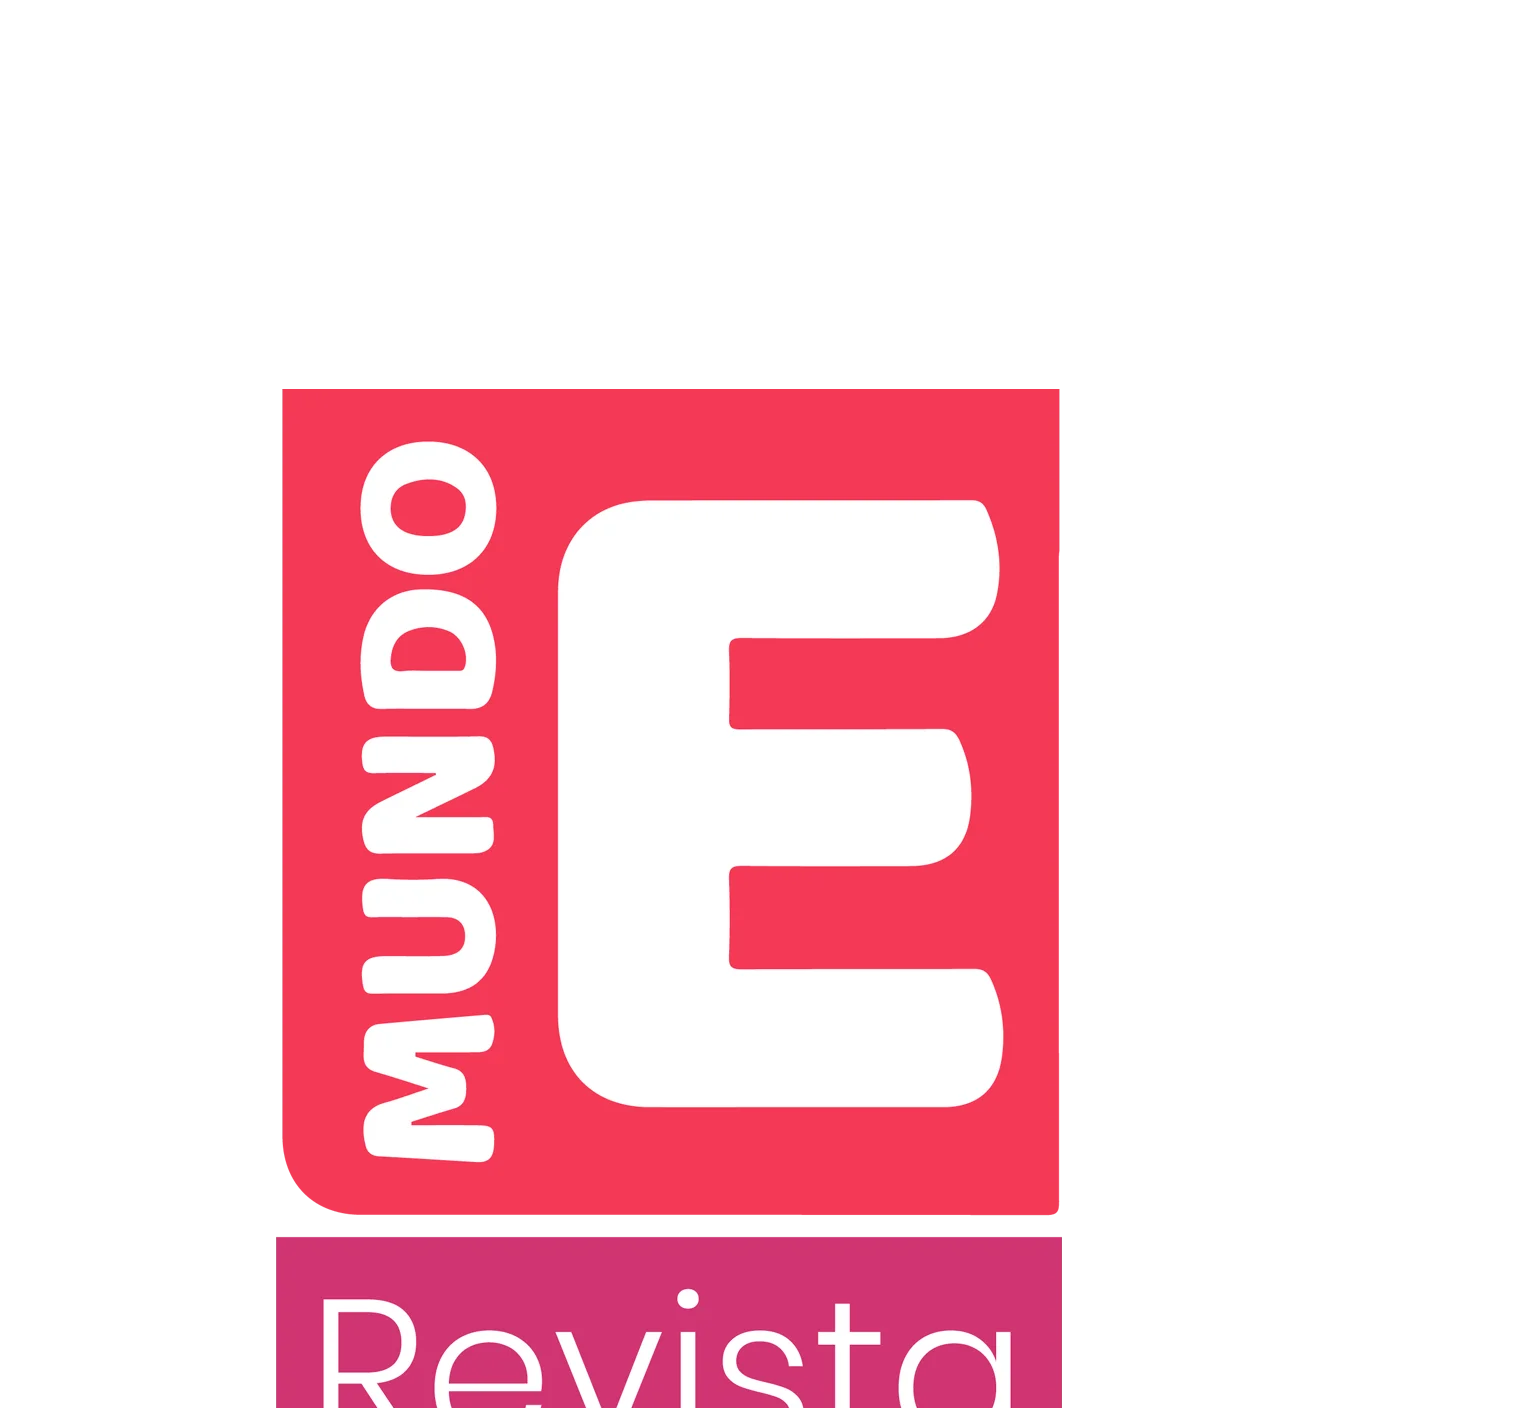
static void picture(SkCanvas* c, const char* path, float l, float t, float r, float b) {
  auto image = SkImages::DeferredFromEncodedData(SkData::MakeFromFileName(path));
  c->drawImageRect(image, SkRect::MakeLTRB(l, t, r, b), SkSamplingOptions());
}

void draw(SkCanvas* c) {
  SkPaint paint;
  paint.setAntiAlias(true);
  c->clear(0xffffffff);
  picture(c, "img_01.png", 276, 389, 1062, 1408);
}
